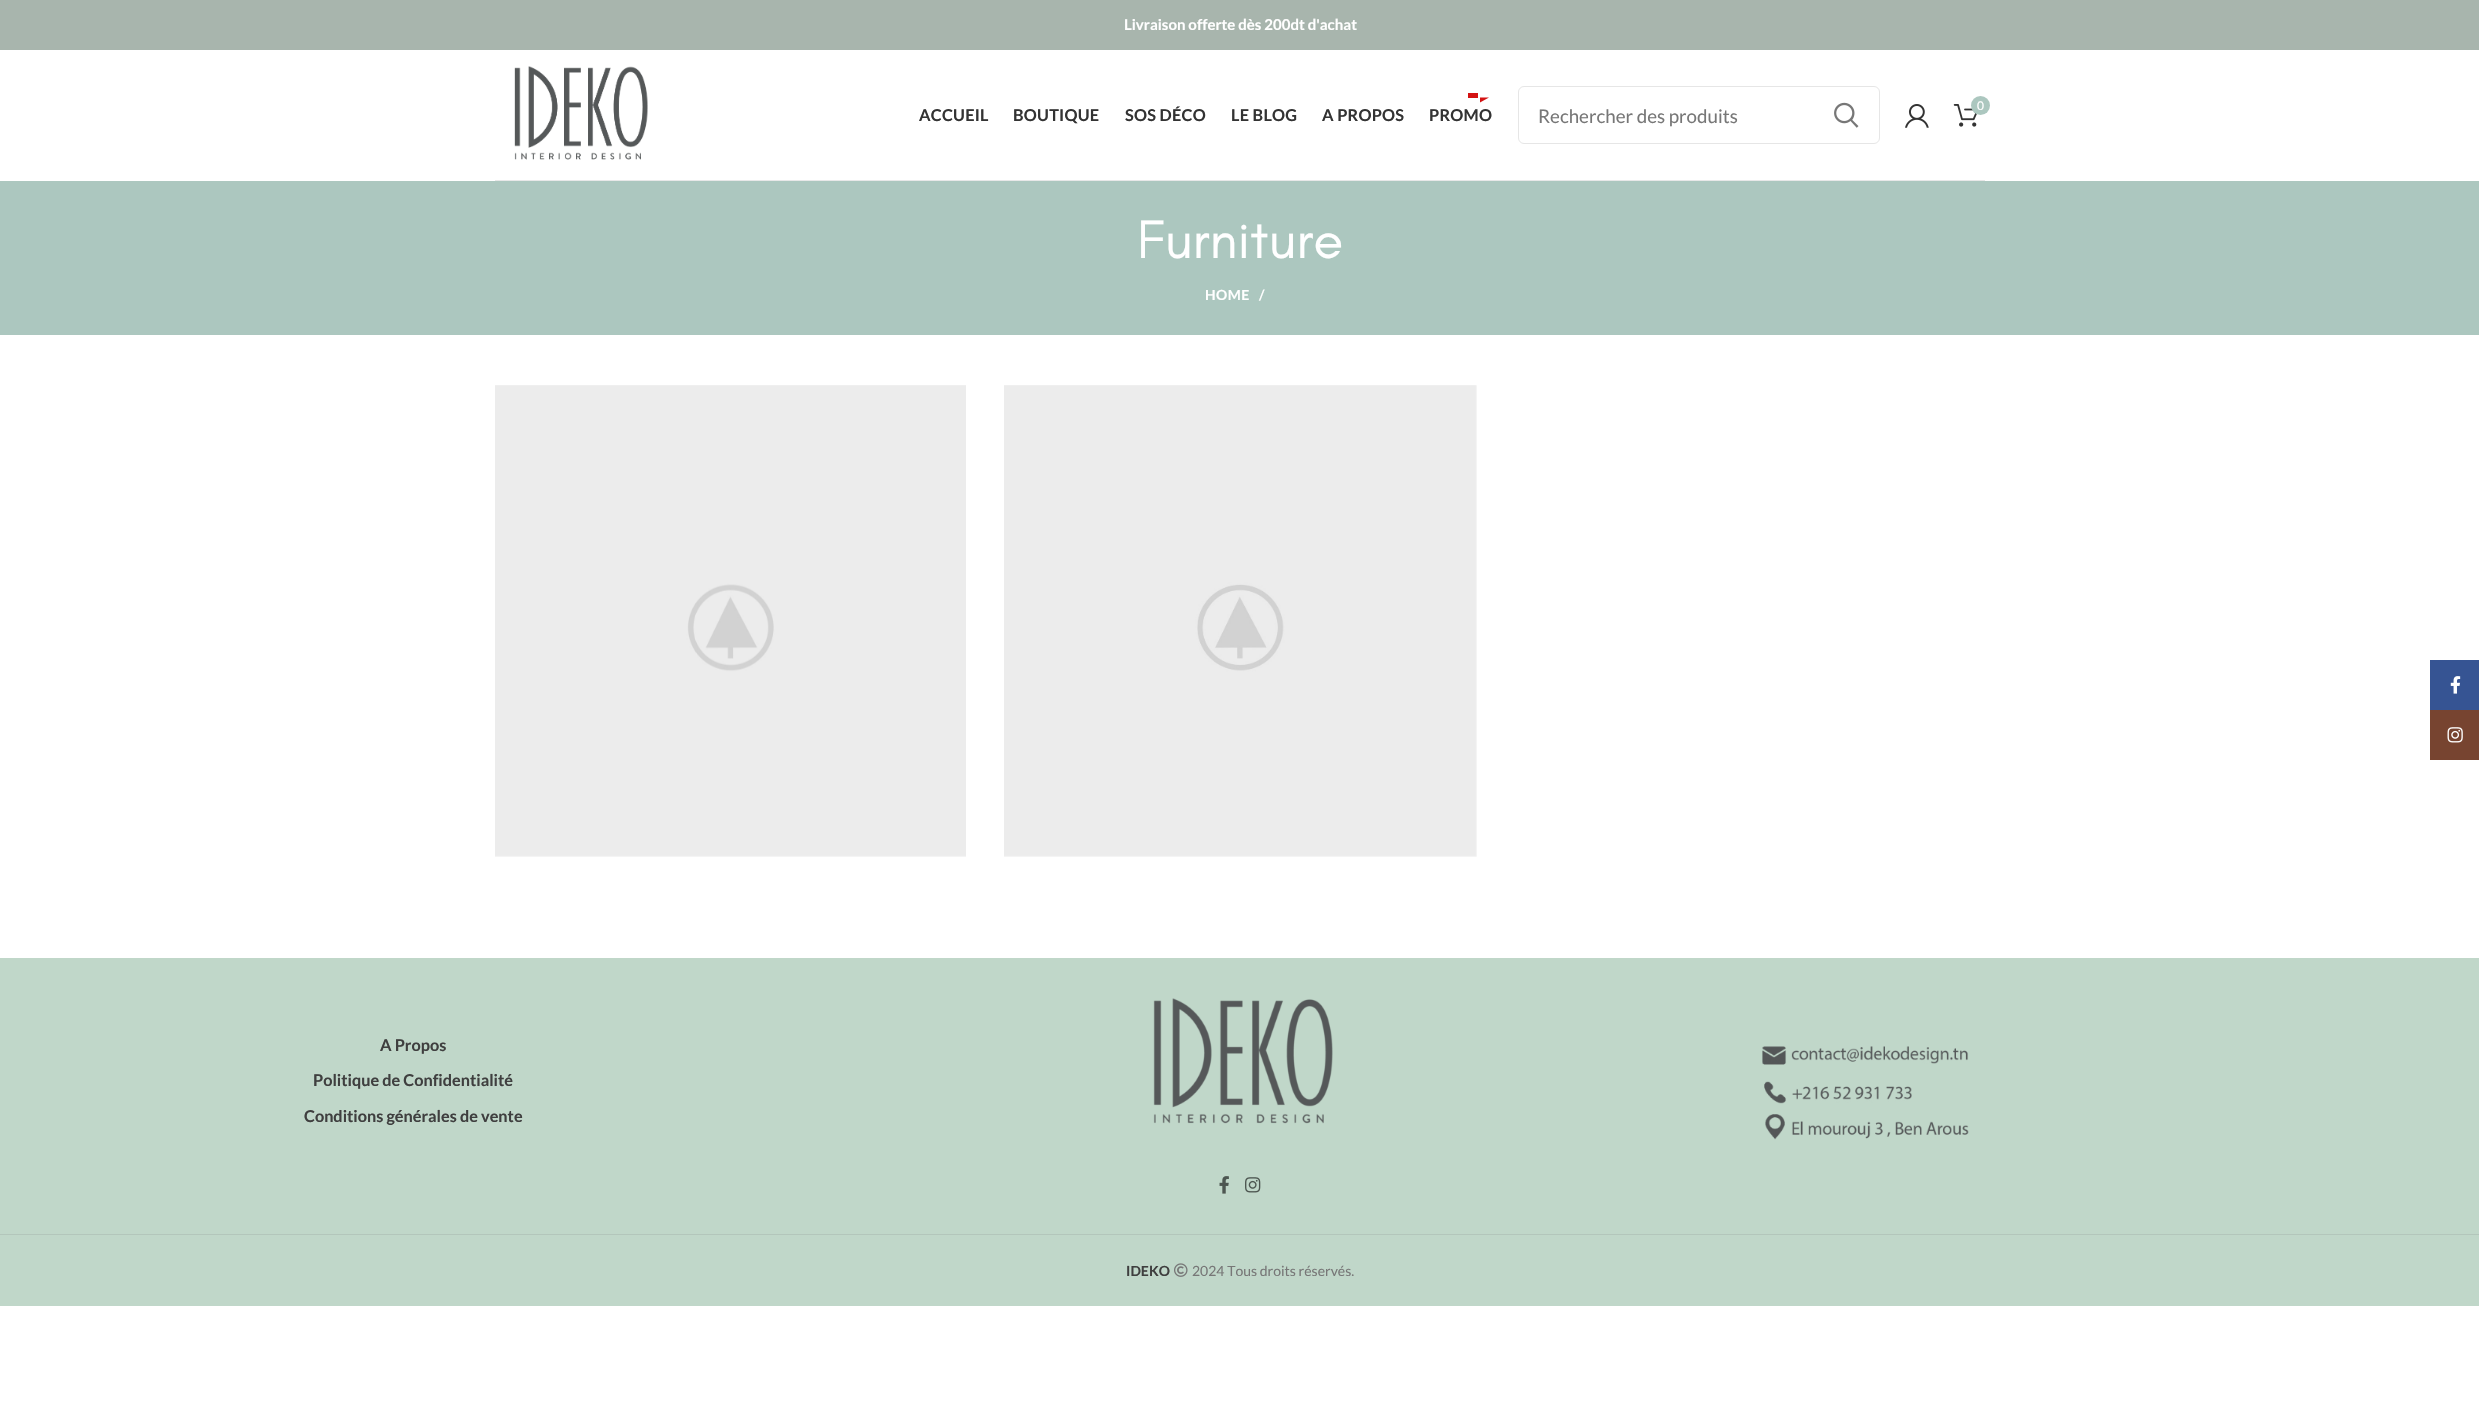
static SkFont makeFont(const char* family, int weight, float size, bool italic = false) {
  SkFontStyle style(weight, SkFontStyle::kNormal_Width,
    italic ? SkFontStyle::kItalic_Slant : SkFontStyle::kUpright_Slant);
  SkFont result(fontMgr->matchFamilyStyle(family, style), size);
  result.setSubpixel(true);
  return result;
}

static void text(SkCanvas* c, const char* s, float x, float y, const SkFont& font, SkColor color) {
  SkPaint ink(SkColor4f::FromColor(color));
  ink.setAntiAlias(true);
  c->drawString(s, x, y, font, ink);
}

static void spacedText(SkCanvas* c, const char* s, float x, float y, const SkFont& font, const SkPaint& ink, float letter, float word) {
  std::vector<SkGlyphID> glyphs(font.countText(s, strlen(s), SkTextEncoding::kUTF8));
  std::vector<float> xs(glyphs.size());
  font.textToGlyphs(s, strlen(s), SkTextEncoding::kUTF8, glyphs);
  font.getXPos(glyphs, xs, x);
  float extra = 0;
  for (size_t i = 0; i < glyphs.size(); i++) {
    xs[i] += extra;
    extra += letter + word * (glyphs[i] == font.unicharToGlyph(' '));
  }
  c->drawTextBlob(SkTextBlob::MakeFromPosHGlyphs(glyphs, xs, y, font), 0, 0, ink);
}

static void box(SkCanvas* c, float l, float t, float r, float b, SkColor color) {
  SkPaint ink(SkColor4f::FromColor(color));
  ink.setAntiAlias(true);
  c->drawRect(SkRect::MakeLTRB(l, t, r, b), ink);
}

static void picture(SkCanvas* c, const char* path, float l, float t, float r, float b) {
  auto image = SkImages::DeferredFromEncodedData(SkData::MakeFromFileName(path));
  c->drawImageRect(image, SkRect::MakeLTRB(l, t, r, b), SkSamplingOptions());
}

void draw(SkCanvas* c) {
  SkPaint paint;
  paint.setAntiAlias(true);
  c->clear(0xffffffff);
  box(c, 0, 0, 2479, 50, 0xffa8b5ad);
  SkFont face1 = makeFont("Lato", 700, 15);
  text(c, "Livraison offerte dès 200dt d'achat", 1124, 30, face1, 0xffffffff);
  box(c, 495, 180, 1985, 181, 0xffe8e8e8);
  picture(c, "img_01.png", 514, 66, 648, 160);
  SkFont face2 = makeFont("Lato", 700, 16.25f);
  paint.setColor(0xff333333);
  spacedText(c, "ACCUEIL", 919, 121, face2, paint, 0.25f, 0);
  spacedText(c, "BOUTIQUE", 1013, 121, face2, paint, 0.25f, 0);
  spacedText(c, "SOS DÉCO", 1125, 121, face2, paint, 0.25f, 0);
  spacedText(c, "LE BLOG", 1231, 121, face2, paint, 0.25f, 0);
  spacedText(c, "A PROPOS", 1322, 121, face2, paint, 0.25f, 0);
  box(c, 1468, 93, 1478, 98, 0xffd41212);
  paint.setColor(0xffd41212);
  c->drawPath(SkPathBuilder().moveTo(1480, 97.5f).lineTo(1489, 97.5f).lineTo(1480, 102.5f).close().detach(), paint);
  paint.setColor(0xff333333);
  spacedText(c, "PROMO", 1429, 121, face2, paint, 0.25f, 0);
  paint.setStyle(SkPaint::kStroke_Style);
  paint.setStrokeWidth(1);
  paint.setColor(0xffe6e6e6);
  c->drawRoundRect(SkRect::MakeLTRB(1518.5f, 86.5f, 1879.5f, 143.5f), 5.5f, 5.5f, paint);
  SkFont face3 = makeFont("Lato", 400, 18.75f);
  text(c, "Rechercher des produits", 1538, 123, face3, 0xff777777);
  picture(c, "img_02.png", 1834, 102, 1859, 128);
  picture(c, "img_03.png", 1905, 104, 1929, 128);
  picture(c, "img_04.png", 1953, 104, 1977, 127);
  paint.setStyle(SkPaint::kFill_Style);
  paint.setColor(0xffacc7bf);
  c->drawCircle(1980.5f, 105.5f, 9.5f, paint);
  SkFont face4 = makeFont("Lato", 400, 12);
  text(c, "0", 1977, 110, face4, 0xffffffff);
  box(c, 0, 181, 2479, 335, 0xffacc7bf);
  SkFont face5 = makeFont("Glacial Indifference", 400, 55);
  text(c, "Furniture", 1137, 258, face5, 0xffffffff);
  SkFont face6 = makeFont("Lato", 700, 14);
  paint.setColor(0xffffffff);
  spacedText(c, "HOME", 1205, 300, face6, paint, 0.5f, 0);
  spacedText(c, "/", 1259, 300, face6, paint, 0.5f, 0);
  picture(c, "img_05.png", 495, 385, 966, 857);
  picture(c, "img_06.png", 1004, 385, 1477, 857);
  box(c, 0, 958, 2479, 1306, 0xffc0d7c9);
  text(c, "A Propos", 380, 1051, face2, 0xff3f3f3f);
  text(c, "Politique de Confidentialité", 313, 1086, face2, 0xff3f3f3f);
  text(c, "Conditions générales de vente", 304, 1122, face2, 0xff3f3f3f);
  picture(c, "img_07.png", 1153, 998, 1333, 1124);
  picture(c, "img_08.png", 1219, 1176, 1229, 1194);
  picture(c, "img_09.png", 1245, 1177, 1261, 1193);
  picture(c, "img_10.png", 1762, 1046, 1969, 1140);
  box(c, 0, 1234, 2479, 1235, 0xffb3c6bb);
  text(c, "IDEKO", 1126, 1276, face6, 0xff3f3f3f);
  picture(c, "img_11.png", 1174, 1263, 1188, 1277);
  SkFont face7 = makeFont("Lato", 400, 14);
  text(c, "2024 Tous droits réservés.", 1192, 1276, face7, 0xff777777);
  box(c, 2430, 660, 2479, 710, 0xff365493);
  picture(c, "img_12.png", 2450, 676, 2461, 694);
  box(c, 2430, 710, 2479, 760, 0xff774430);
  picture(c, "img_13.png", 2447, 727, 2463, 743);
}
